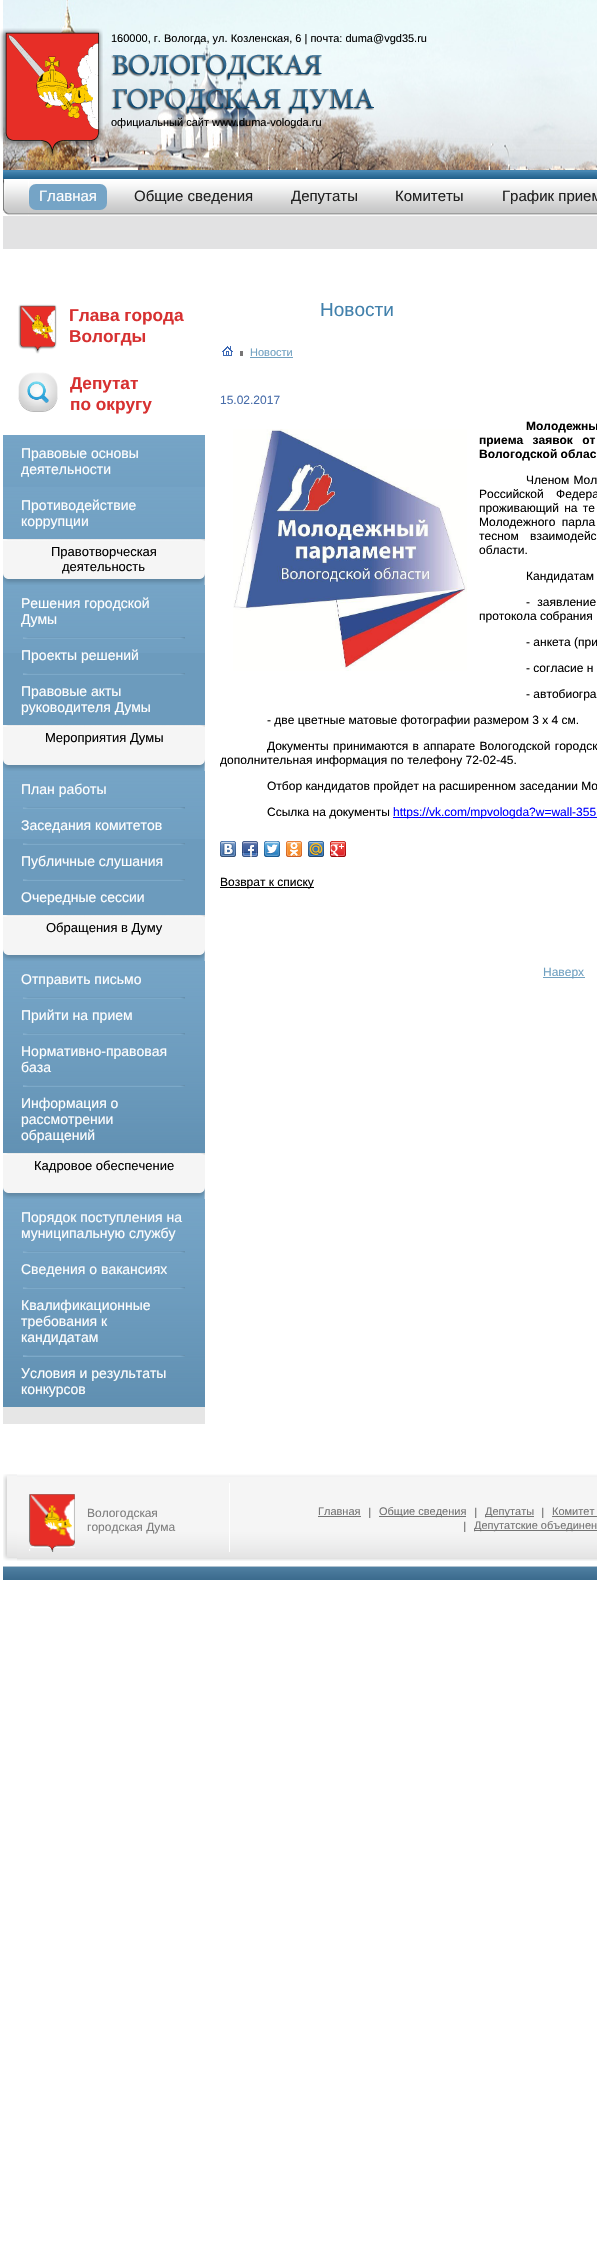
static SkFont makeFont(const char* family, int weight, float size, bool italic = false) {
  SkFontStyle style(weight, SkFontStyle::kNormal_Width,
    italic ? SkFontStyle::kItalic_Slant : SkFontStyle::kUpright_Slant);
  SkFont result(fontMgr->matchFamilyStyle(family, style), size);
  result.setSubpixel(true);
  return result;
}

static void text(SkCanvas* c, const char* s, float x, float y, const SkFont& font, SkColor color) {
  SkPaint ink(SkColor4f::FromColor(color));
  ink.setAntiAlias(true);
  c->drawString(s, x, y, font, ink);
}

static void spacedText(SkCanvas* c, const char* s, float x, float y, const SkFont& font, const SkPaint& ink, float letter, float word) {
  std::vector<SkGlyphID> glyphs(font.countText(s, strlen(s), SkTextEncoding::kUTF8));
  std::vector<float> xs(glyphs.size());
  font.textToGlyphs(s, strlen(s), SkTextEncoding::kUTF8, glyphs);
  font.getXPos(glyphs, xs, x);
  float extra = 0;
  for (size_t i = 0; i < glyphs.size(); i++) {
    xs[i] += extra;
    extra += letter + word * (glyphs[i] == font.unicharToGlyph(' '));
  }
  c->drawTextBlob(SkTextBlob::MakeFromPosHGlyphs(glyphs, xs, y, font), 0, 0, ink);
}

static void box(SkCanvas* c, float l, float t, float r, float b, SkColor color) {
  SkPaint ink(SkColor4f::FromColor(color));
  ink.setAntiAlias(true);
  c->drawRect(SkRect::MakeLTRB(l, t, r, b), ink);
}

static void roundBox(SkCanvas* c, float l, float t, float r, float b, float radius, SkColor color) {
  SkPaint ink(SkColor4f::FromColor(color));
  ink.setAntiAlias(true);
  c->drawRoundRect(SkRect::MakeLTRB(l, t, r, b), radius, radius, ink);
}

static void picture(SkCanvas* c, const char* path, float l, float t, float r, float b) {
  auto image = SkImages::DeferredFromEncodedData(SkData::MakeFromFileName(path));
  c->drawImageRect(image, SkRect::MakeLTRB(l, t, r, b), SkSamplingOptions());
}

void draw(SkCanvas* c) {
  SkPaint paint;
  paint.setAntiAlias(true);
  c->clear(0xffffffff);
  picture(c, "img_01.png", 3, 0, 597, 170);
  picture(c, "img_02.png", 0, 28, 103, 159);
  SkFont face1 = makeFont("Liberation Sans", 400, 11);
  text(c, "160000, г. Вологда, ул. Козленская, 6 | почта: duma@vgd35.ru", 111, 42, face1, 0xff000000);
  picture(c, "img_03.png", 111, 54, 374, 115);
  text(c, "официальный сайт www.duma-vologda.ru", 111, 126, face1, 0xff000000);
  picture(c, "img_04.png", 3, 170, 597, 179);
  box(c, 3, 216, 597, 249, 0xffe2e2e3);
  picture(c, "img_05.png", 3, 179, 29, 216);
  picture(c, "img_06.png", 29, 179, 597, 216);
  roundBox(c, 29, 184, 107, 210, 7, 0xff75a4c6);
  SkFont face2 = makeFont("Liberation Sans", 400, 15);
  text(c, "Главная", 39, 201, face2, 0xffffffff);
  text(c, "Общие сведения", 134, 201, face2, 0xff212121);
  text(c, "Депутаты", 291, 201, face2, 0xff212121);
  text(c, "Комитеты", 395, 201, face2, 0xff212121);
  text(c, "График прием", 502, 201, face2, 0xff212121);
  picture(c, "img_07.png", 18, 304, 57, 354);
  SkFont face3 = makeFont("Liberation Sans", 700, 17.25f);
  text(c, "Глава города", 69, 321, face3, 0xffd73131);
  text(c, "Вологды", 69, 342, face3, 0xffd73131);
  picture(c, "img_08.png", 18, 372, 58, 412);
  text(c, "Депутат", 70, 389, face3, 0xffd73131);
  text(c, "по округу", 70, 410, face3, 0xffd73131);
  picture(c, "img_09.png", 3, 435, 205, 487);
  SkFont face4 = makeFont("Liberation Sans", 400, 14);
  text(c, "Правовые основы", 21, 458, face4, 0xffffffff);
  text(c, "деятельности", 21, 474, face4, 0xffffffff);
  picture(c, "img_09.png", 3, 487, 205, 539);
  text(c, "Противодействие", 21, 510, face4, 0xffffffff);
  text(c, "коррупции", 21, 526, face4, 0xffffffff);
  picture(c, "img_10.png", 3, 539, 205, 585);
  SkFont face5 = makeFont("Liberation Sans", 400, 13);
  text(c, "Правотворческая", 51, 556, face5, 0xff000000);
  text(c, "деятельность", 62, 571, face5, 0xff000000);
  box(c, 3, 653, 205, 725, 0xff6c9bbd);
  picture(c, "img_11.png", 3, 585, 205, 653);
  text(c, "Решения городской", 21, 608, face4, 0xffffffff);
  text(c, "Думы", 21, 624, face4, 0xffffffff);
  picture(c, "img_12.png", 23, 637, 185, 639);
  text(c, "Проекты решений", 21, 660, face4, 0xffffffff);
  picture(c, "img_12.png", 23, 673, 185, 675);
  text(c, "Правовые акты", 21, 696, face4, 0xffffffff);
  text(c, "руководителя Думы", 21, 712, face4, 0xffffffff);
  picture(c, "img_10.png", 3, 725, 205, 771);
  text(c, "Мероприятия Думы", 45, 742, face5, 0xff000000);
  box(c, 3, 839, 205, 915, 0xff6c9bbd);
  picture(c, "img_11.png", 3, 771, 205, 839);
  text(c, "План работы", 21, 794, face4, 0xffffffff);
  picture(c, "img_12.png", 23, 807, 185, 809);
  text(c, "Заседания комитетов", 21, 830, face4, 0xffffffff);
  picture(c, "img_12.png", 23, 843, 185, 845);
  text(c, "Публичные слушания", 21, 866, face4, 0xffffffff);
  picture(c, "img_12.png", 23, 879, 185, 881);
  text(c, "Очередные сессии", 21, 902, face4, 0xffffffff);
  picture(c, "img_10.png", 3, 915, 205, 961);
  text(c, "Обращения в Думу", 46, 932, face5, 0xff000000);
  picture(c, "img_13.png", 3, 961, 205, 1153);
  text(c, "Отправить письмо", 21, 984, face4, 0xffffffff);
  picture(c, "img_12.png", 23, 997, 185, 999);
  text(c, "Прийти на прием", 21, 1020, face4, 0xffffffff);
  picture(c, "img_12.png", 23, 1033, 185, 1035);
  text(c, "Нормативно-правовая", 21, 1056, face4, 0xffffffff);
  text(c, "база", 21, 1072, face4, 0xffffffff);
  picture(c, "img_12.png", 23, 1085, 185, 1087);
  text(c, "Информация о", 21, 1108, face4, 0xffffffff);
  text(c, "рассмотрении", 21, 1124, face4, 0xffffffff);
  text(c, "обращений", 21, 1140, face4, 0xffffffff);
  picture(c, "img_10.png", 3, 1153, 205, 1199);
  text(c, "Кадровое обеспечение", 34, 1170, face5, 0xff000000);
  picture(c, "img_14.png", 3, 1199, 205, 1407);
  text(c, "Порядок поступления на", 21, 1222, face4, 0xffffffff);
  text(c, "муниципальную службу", 21, 1238, face4, 0xffffffff);
  picture(c, "img_12.png", 23, 1251, 185, 1253);
  text(c, "Сведения о вакансиях", 21, 1274, face4, 0xffffffff);
  picture(c, "img_12.png", 23, 1287, 185, 1289);
  text(c, "Квалификационные", 21, 1310, face4, 0xffffffff);
  text(c, "требования к", 21, 1326, face4, 0xffffffff);
  text(c, "кандидатам", 21, 1342, face4, 0xffffffff);
  picture(c, "img_12.png", 23, 1355, 185, 1357);
  text(c, "Условия и результаты", 21, 1378, face4, 0xffffffff);
  text(c, "конкурсов", 21, 1394, face4, 0xffffffff);
  box(c, 3, 1407, 205, 1424, 0xffe6e6e6);
  SkFont face6 = makeFont("Liberation Sans", 400, 19);
  text(c, "Новости", 320, 316, face6, 0xff4281ac);
  picture(c, "img_15.png", 222, 346, 233, 356);
  box(c, 240, 351, 243, 356, 0xff777575);
  text(c, "Новости", 250, 356, face1, 0xff71a1c1);
  box(c, 250, 357, 293, 358, 0xff71a1c1);
  SkFont face7 = makeFont("Liberation Sans", 400, 12);
  text(c, "15.02.2017", 220, 404, face7, 0xff486daa);
  SkFont face8 = makeFont("Liberation Sans", 700, 12);
  paint.setColor(0xff000000);
  spacedText(c, "Молодежны", 526, 430, face8, paint, 0, 1);
  picture(c, "img_16.png", 233, 429, 467, 671);
  spacedText(c, "приема заявок от", 479, 444, face8, paint, 0, 6);
  text(c, "Вологодской облас", 479, 458, face8, 0xff000000);
  spacedText(c, "Членом Мол", 526, 484, face7, paint, 0, 1);
  spacedText(c, "Российской Федера", 479, 498, face7, paint, 0, 9);
  spacedText(c, "проживающий на те", 479, 512, face7, paint, 0, 2);
  spacedText(c, "Молодежного парла", 479, 526, face7, paint, 0, 3);
  spacedText(c, "тесном взаимодейс", 479, 540, face7, paint, 0, 8);
  text(c, "области.", 479, 554, face7, 0xff000000);
  text(c, "Кандидатам", 526, 580, face7, 0xff000000);
  spacedText(c, "- заявление", 526, 606, face7, paint, 0, 4);
  text(c, "протокола собрания", 479, 620, face7, 0xff000000);
  text(c, "- анкета (при", 526, 646, face7, 0xff000000);
  text(c, "- согласие н", 526, 672, face7, 0xff000000);
  text(c, "- автобиогра", 526, 698, face7, 0xff000000);
  text(c, "- две цветные матовые фотографии размером 3 x 4 см.", 267, 724, face7, 0xff000000);
  spacedText(c, "Документы принимаются в аппарате Вологодской городск", 267, 750, face7, paint, 0, 1);
  text(c, "дополнительная информация по телефону 72-02-45.", 220, 764, face7, 0xff000000);
  text(c, "Отбор кандидатов пройдет на расширенном заседании Мо", 267, 790, face7, 0xff000000);
  text(c, "Ссылка на документы", 267, 816, face7, 0xff000000);
  box(c, 393, 817, 597, 818, 0xff0000ff);
  text(c, "https://vk.com/mpvologda?w=wall-355", 393, 816, face7, 0xff0000ff);
  picture(c, "img_17.png", 220, 841, 236, 857);
  picture(c, "img_18.png", 242, 841, 258, 857);
  picture(c, "img_19.png", 264, 841, 280, 857);
  picture(c, "img_20.png", 286, 841, 302, 857);
  picture(c, "img_21.png", 308, 841, 324, 857);
  picture(c, "img_22.png", 330, 841, 346, 857);
  box(c, 220, 887, 314, 888, 0xff000000);
  text(c, "Возврат к списку", 220, 886, face7, 0xff000000);
  box(c, 543, 977, 585, 978, 0xff71a1c1);
  text(c, "Наверх", 543, 976, face7, 0xff71a1c1);
  picture(c, "img_23.png", 3, 1474, 17, 1561);
  box(c, 17, 1560, 597, 1561, 0xfff5f5f5);
  picture(c, "img_24.png", 17, 1474, 597, 1560);
  box(c, 229, 1483, 230, 1552, 0xffffffff);
  picture(c, "img_25.png", 29, 1494, 75, 1552);
  text(c, "Вологодская", 87, 1517, face7, 0xff7e7e7e);
  text(c, "городская Дума", 87, 1531, face7, 0xff7e7e7e);
  text(c, "Главная", 318, 1515, face1, 0xff747474);
  box(c, 318, 1516, 361, 1517, 0xff747474);
  picture(c, "img_26.png", 369, 1507, 371, 1518);
  box(c, 379, 1516, 466, 1517, 0xff747474);
  text(c, "Общие сведения", 379, 1515, face1, 0xff747474);
  picture(c, "img_26.png", 475, 1507, 477, 1518);
  box(c, 485, 1516, 534, 1517, 0xff747474);
  text(c, "Депутаты", 485, 1515, face1, 0xff747474);
  picture(c, "img_26.png", 542, 1507, 544, 1518);
  text(c, "Комитет", 552, 1515, face1, 0xff747474);
  box(c, 552, 1516, 597, 1517, 0xff747474);
  picture(c, "img_26.png", 464, 1521, 466, 1532);
  box(c, 474, 1530, 597, 1531, 0xff747474);
  text(c, "Депутатские объединен", 474, 1529, face1, 0xff747474);
  picture(c, "img_27.png", 3, 1566, 597, 1580);
}
